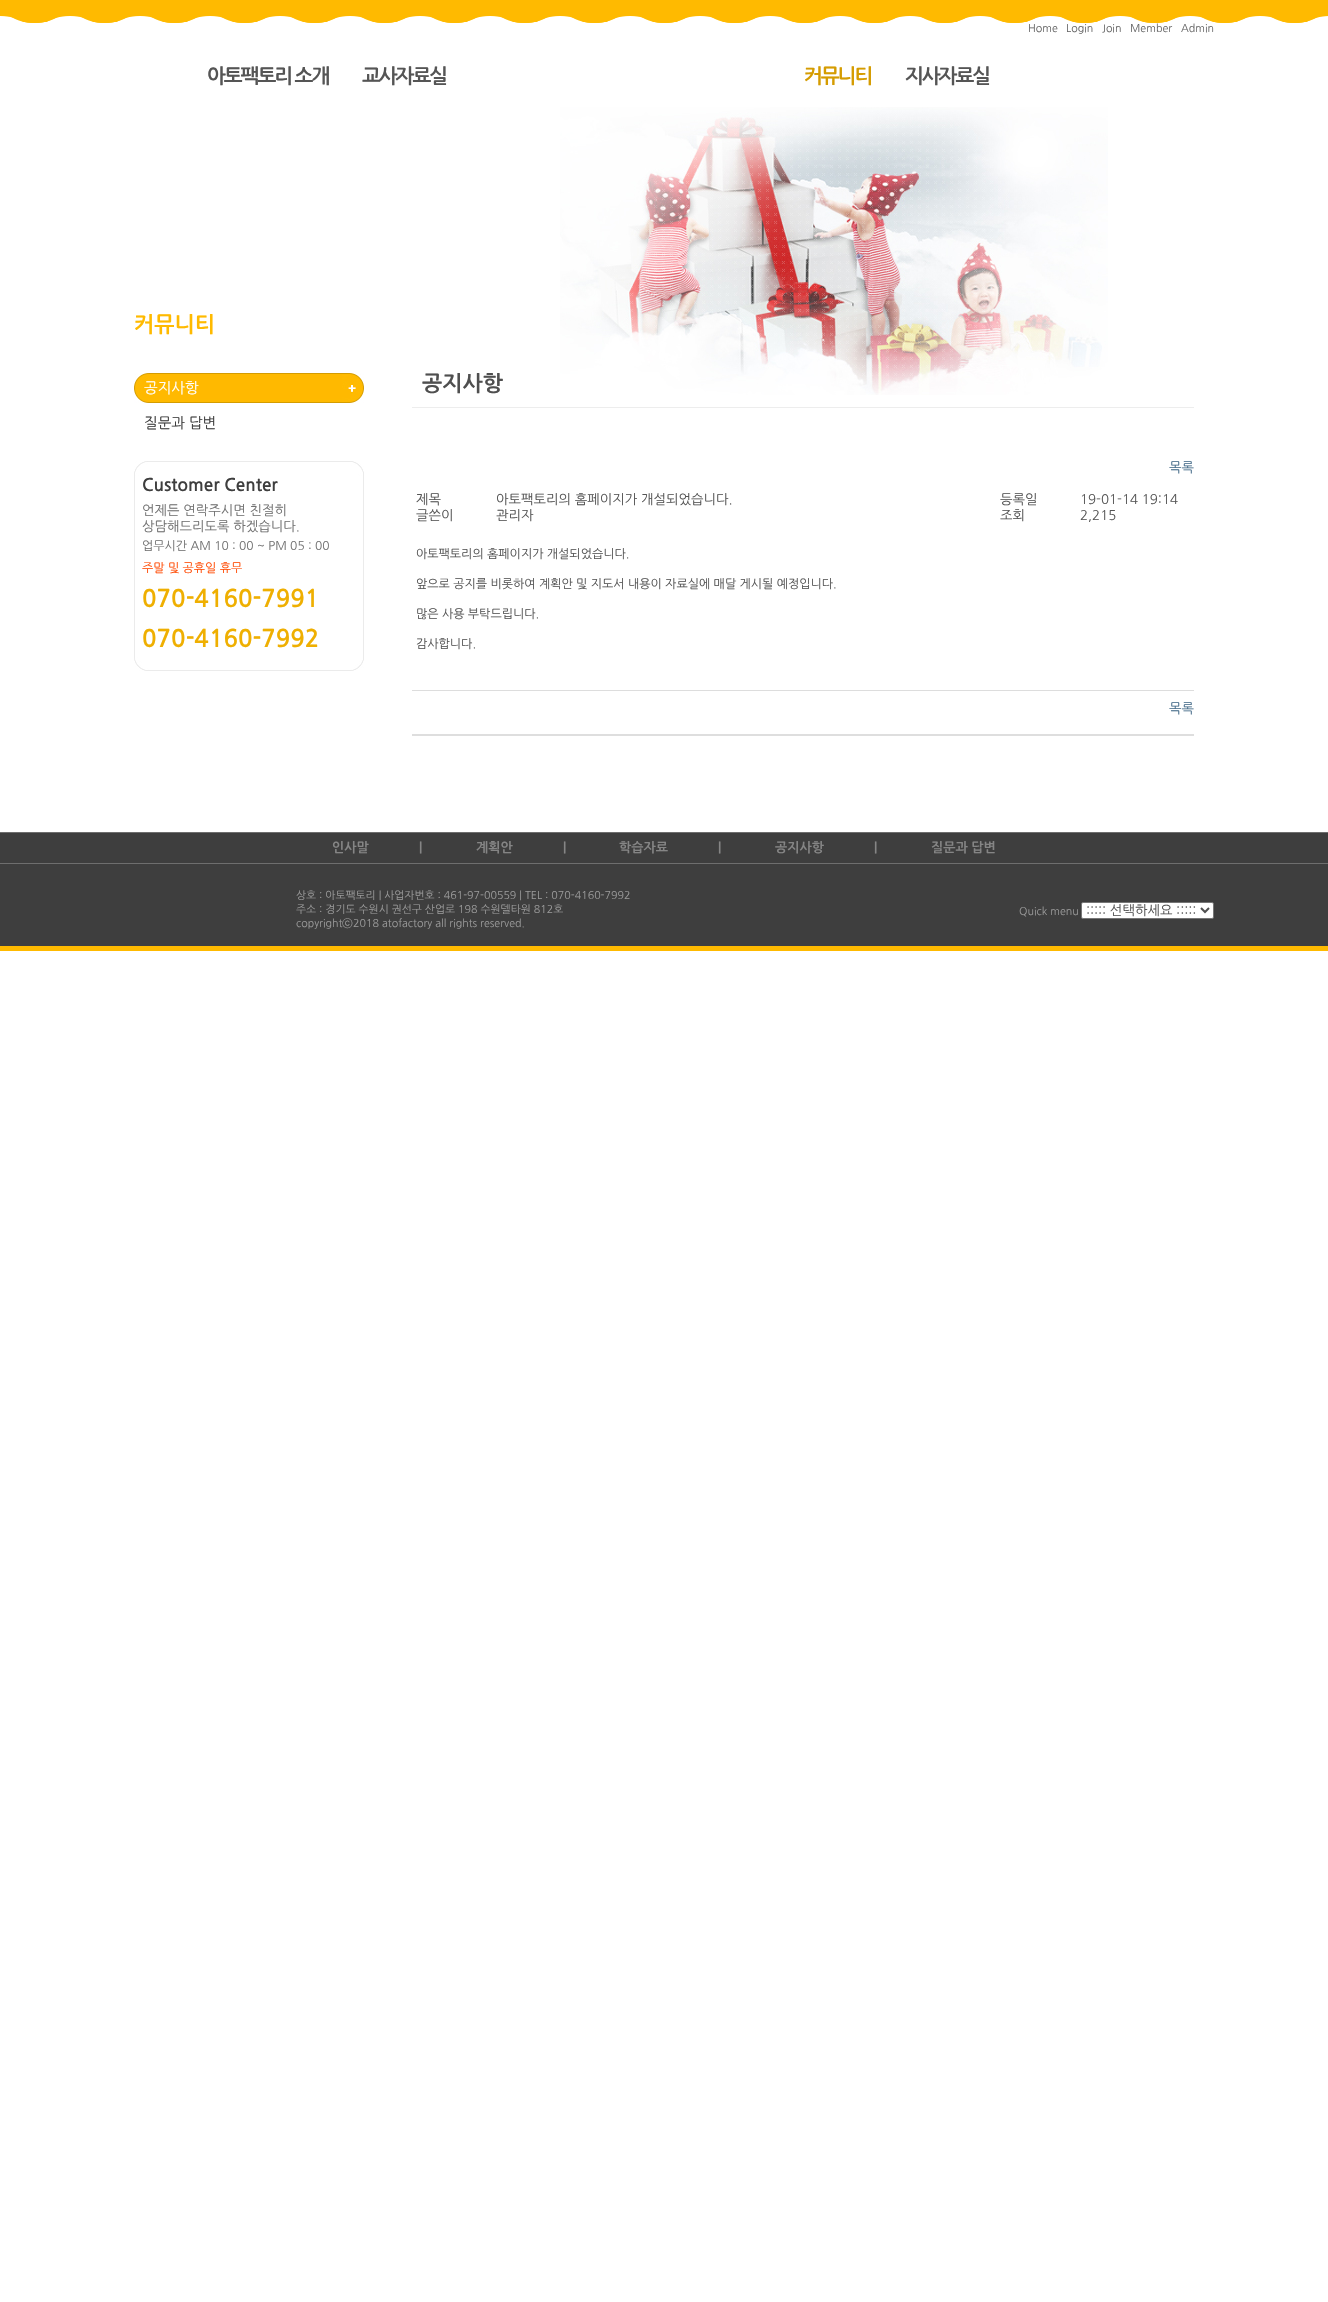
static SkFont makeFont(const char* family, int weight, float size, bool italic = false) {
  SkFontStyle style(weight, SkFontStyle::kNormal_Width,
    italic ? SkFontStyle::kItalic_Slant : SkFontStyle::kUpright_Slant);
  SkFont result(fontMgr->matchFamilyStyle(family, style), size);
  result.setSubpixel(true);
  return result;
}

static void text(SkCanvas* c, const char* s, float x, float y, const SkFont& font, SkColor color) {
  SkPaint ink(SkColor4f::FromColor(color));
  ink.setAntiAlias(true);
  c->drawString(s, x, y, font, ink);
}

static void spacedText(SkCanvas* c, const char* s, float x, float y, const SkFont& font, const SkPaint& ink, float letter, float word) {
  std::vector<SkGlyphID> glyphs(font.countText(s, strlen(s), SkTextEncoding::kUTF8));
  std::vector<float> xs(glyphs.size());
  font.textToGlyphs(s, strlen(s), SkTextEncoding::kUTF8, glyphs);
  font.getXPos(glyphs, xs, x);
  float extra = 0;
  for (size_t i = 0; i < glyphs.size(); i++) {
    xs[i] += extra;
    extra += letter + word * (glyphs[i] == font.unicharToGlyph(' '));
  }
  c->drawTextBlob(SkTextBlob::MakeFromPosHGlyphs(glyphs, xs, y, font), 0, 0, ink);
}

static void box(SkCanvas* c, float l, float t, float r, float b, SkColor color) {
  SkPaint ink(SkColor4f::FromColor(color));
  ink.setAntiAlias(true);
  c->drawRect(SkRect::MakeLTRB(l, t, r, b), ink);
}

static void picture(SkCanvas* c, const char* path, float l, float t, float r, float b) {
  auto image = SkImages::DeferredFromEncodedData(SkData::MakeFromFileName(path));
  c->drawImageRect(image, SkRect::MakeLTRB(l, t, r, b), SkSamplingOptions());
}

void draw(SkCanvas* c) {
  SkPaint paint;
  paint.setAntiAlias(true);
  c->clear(0xffffffff);
  picture(c, "img_01.png", 560, 107, 1108, 395);
  picture(c, "img_02.png", 0, 0, 1328, 23);
  SkFont face1 = makeFont("NanumGothic", 400, 10.7f);
  text(c, "Home", 1028, 32, face1, 0xff666666);
  text(c, "Login", 1066, 32, face1, 0xff666666);
  text(c, "Join", 1102, 32, face1, 0xff666666);
  text(c, "Member", 1130, 32, face1, 0xff666666);
  text(c, "Admin", 1181, 32, face1, 0xff666666);
  SkFont face2 = makeFont("NanumGothic", 700, 20);
  paint.setColor(0xff555555);
  spacedText(c, "아토팩토리 소개", 207, 83, face2, paint, -2, 0);
  spacedText(c, "교사자료실", 362, 83, face2, paint, -2, 0);
  paint.setColor(0xffd59c01);
  spacedText(c, "커뮤니티", 804, 83, face2, paint, -2, 0);
  paint.setColor(0xff555555);
  spacedText(c, "지사자료실", 905, 83, face2, paint, -2, 0);
  SkFont face3 = makeFont("NanumGothic", 700, 21.5f);
  text(c, "커뮤니티", 134, 332, face3, 0xffffba00);
  picture(c, "img_03.png", 134, 373, 364, 403);
  SkFont face4 = makeFont("NanumGothic", 400, 14.5f);
  text(c, "공지사항", 144, 393, face4, 0xffffffff);
  text(c, "질문과 답변", 144, 428, face4, 0xff3e3e3e);
  picture(c, "img_04.png", 134, 461, 364, 671);
  SkFont face5 = makeFont("NanumGothic", 700, 17.25f);
  text(c, "Customer Center", 142, 491, face5, 0xff3e3e3e);
  SkFont face6 = makeFont("NanumGothic", 400, 13.3f);
  text(c, "언제든 연락주시면 친절히", 142, 515, face6, 0xff727272);
  text(c, "상담해드리도록 하겠습니다.", 142, 531, face6, 0xff727272);
  SkFont face7 = makeFont("NanumGothic", 400, 12);
  text(c, "업무시간 AM 10 : 00 ~ PM 05 : 00", 142, 550, face7, 0xff727272);
  text(c, "주말 및 공휴일 휴무", 142, 572, face7, 0xffff4800);
  SkFont face8 = makeFont("NanumGothic", 700, 24);
  text(c, "070-4160-7991", 142, 607, face8, 0xffefaf01);
  text(c, "070-4160-7992", 142, 647, face8, 0xffefaf01);
  box(c, 412, 407, 1194, 408, 0xffededed);
  text(c, "공지사항", 422, 391, face3, 0xff4f4f4f);
  text(c, "목록", 1169, 472, face6, 0xff466c8a);
  text(c, "제목", 416, 504, face6, 0xff555555);
  text(c, "아토팩토리의 홈페이지가 개설되었습니다.", 496, 504, face6, 0xff555555);
  text(c, "등록일", 1000, 504, face6, 0xff555555);
  text(c, "19-01-14 19:14", 1080, 504, face6, 0xff555555);
  text(c, "글쓴이", 416, 520, face6, 0xff555555);
  text(c, "관리자", 496, 520, face6, 0xff555555);
  text(c, "조회", 1000, 520, face6, 0xff555555);
  text(c, "2,215", 1080, 520, face6, 0xff555555);
  text(c, "아토팩토리의 홈페이지가 개설되었습니다.", 416, 558, face7, 0xff555555);
  text(c, "앞으로 공지를 비롯하여 계획안 및 지도서 내용이 자료실에 매달 게시될 예정입니다.", 416, 588, face7, 0xff555555);
  text(c, "많은 사용 부탁드립니다.", 416, 618, face7, 0xff555555);
  text(c, "감사합니다.", 416, 648, face7, 0xff555555);
  box(c, 412, 690, 1194, 691, 0xffdddddd);
  text(c, "목록", 1169, 713, face6, 0xff466c8a);
  box(c, 412, 734, 1194, 736, 0xffdedede);
  box(c, 0, 833, 1328, 863, 0xff3e3e3e);
  box(c, 0, 832, 1328, 833, 0xff6e6e6e);
  box(c, 0, 863, 1328, 864, 0xff6e6e6e);
  SkFont face9 = makeFont("NanumGothic", 700, 13);
  text(c, "인사말", 332, 852, face9, 0xff858585);
  text(c, "|", 419, 852, face9, 0xff858585);
  text(c, "계획안", 476, 852, face9, 0xff858585);
  text(c, "|", 563, 852, face9, 0xff858585);
  text(c, "학습자료", 619, 852, face9, 0xff858585);
  text(c, "|", 718, 852, face9, 0xff858585);
  text(c, "공지사항", 775, 852, face9, 0xff858585);
  text(c, "|", 874, 852, face9, 0xff858585);
  text(c, "질문과 답변", 931, 852, face9, 0xff858585);
  box(c, 0, 864, 1328, 946, 0xff3e3e3e);
  box(c, 0, 946, 1328, 951, 0xffffba00);
  text(c, "상호 : 아토팩토리 | 사업자번호 : 461-97-00559 | TEL : 070-4160-7992", 296, 899, face1, 0xff999999);
  text(c, "주소 : 경기도 수원시 권선구 산업로 198 수원델타원 812호", 296, 913, face1, 0xff999999);
  text(c, "copyright", 296, 927, face1, 0xff999999);
  SkFont face10 = makeFont("WenQuanYi Zen Hei", 500, 10.7f);
  text(c, "ⓒ", 342, 927, face10, 0xff999999);
  text(c, "2018 atofactory all rights reserved.", 353, 927, face1, 0xff999999);
  text(c, "Quick menu", 1019, 915, face1, 0xff999999);
  paint.setColor(0xffffffff);
  c->drawRoundRect(SkRect::MakeLTRB(1081.5f, 902.5f, 1213.5f, 918.5f), 1.5f, 1.5f, paint);
  paint.setStyle(SkPaint::kStroke_Style);
  paint.setStrokeWidth(1);
  paint.setColor(0xff767676);
  c->drawRoundRect(SkRect::MakeLTRB(1081.5f, 902.5f, 1213.5f, 918.5f), 1.5f, 1.5f, paint);
  paint.setStrokeWidth(2);
  paint.setColor(0xff505050);
  c->drawPath(SkPathBuilder().moveTo(1201, 908).lineTo(1205, 912).lineTo(1209, 908).detach(), paint);
  text(c, "::::: 선택하세요 :::::", 1086, 915, face6, 0xff555555);
}
